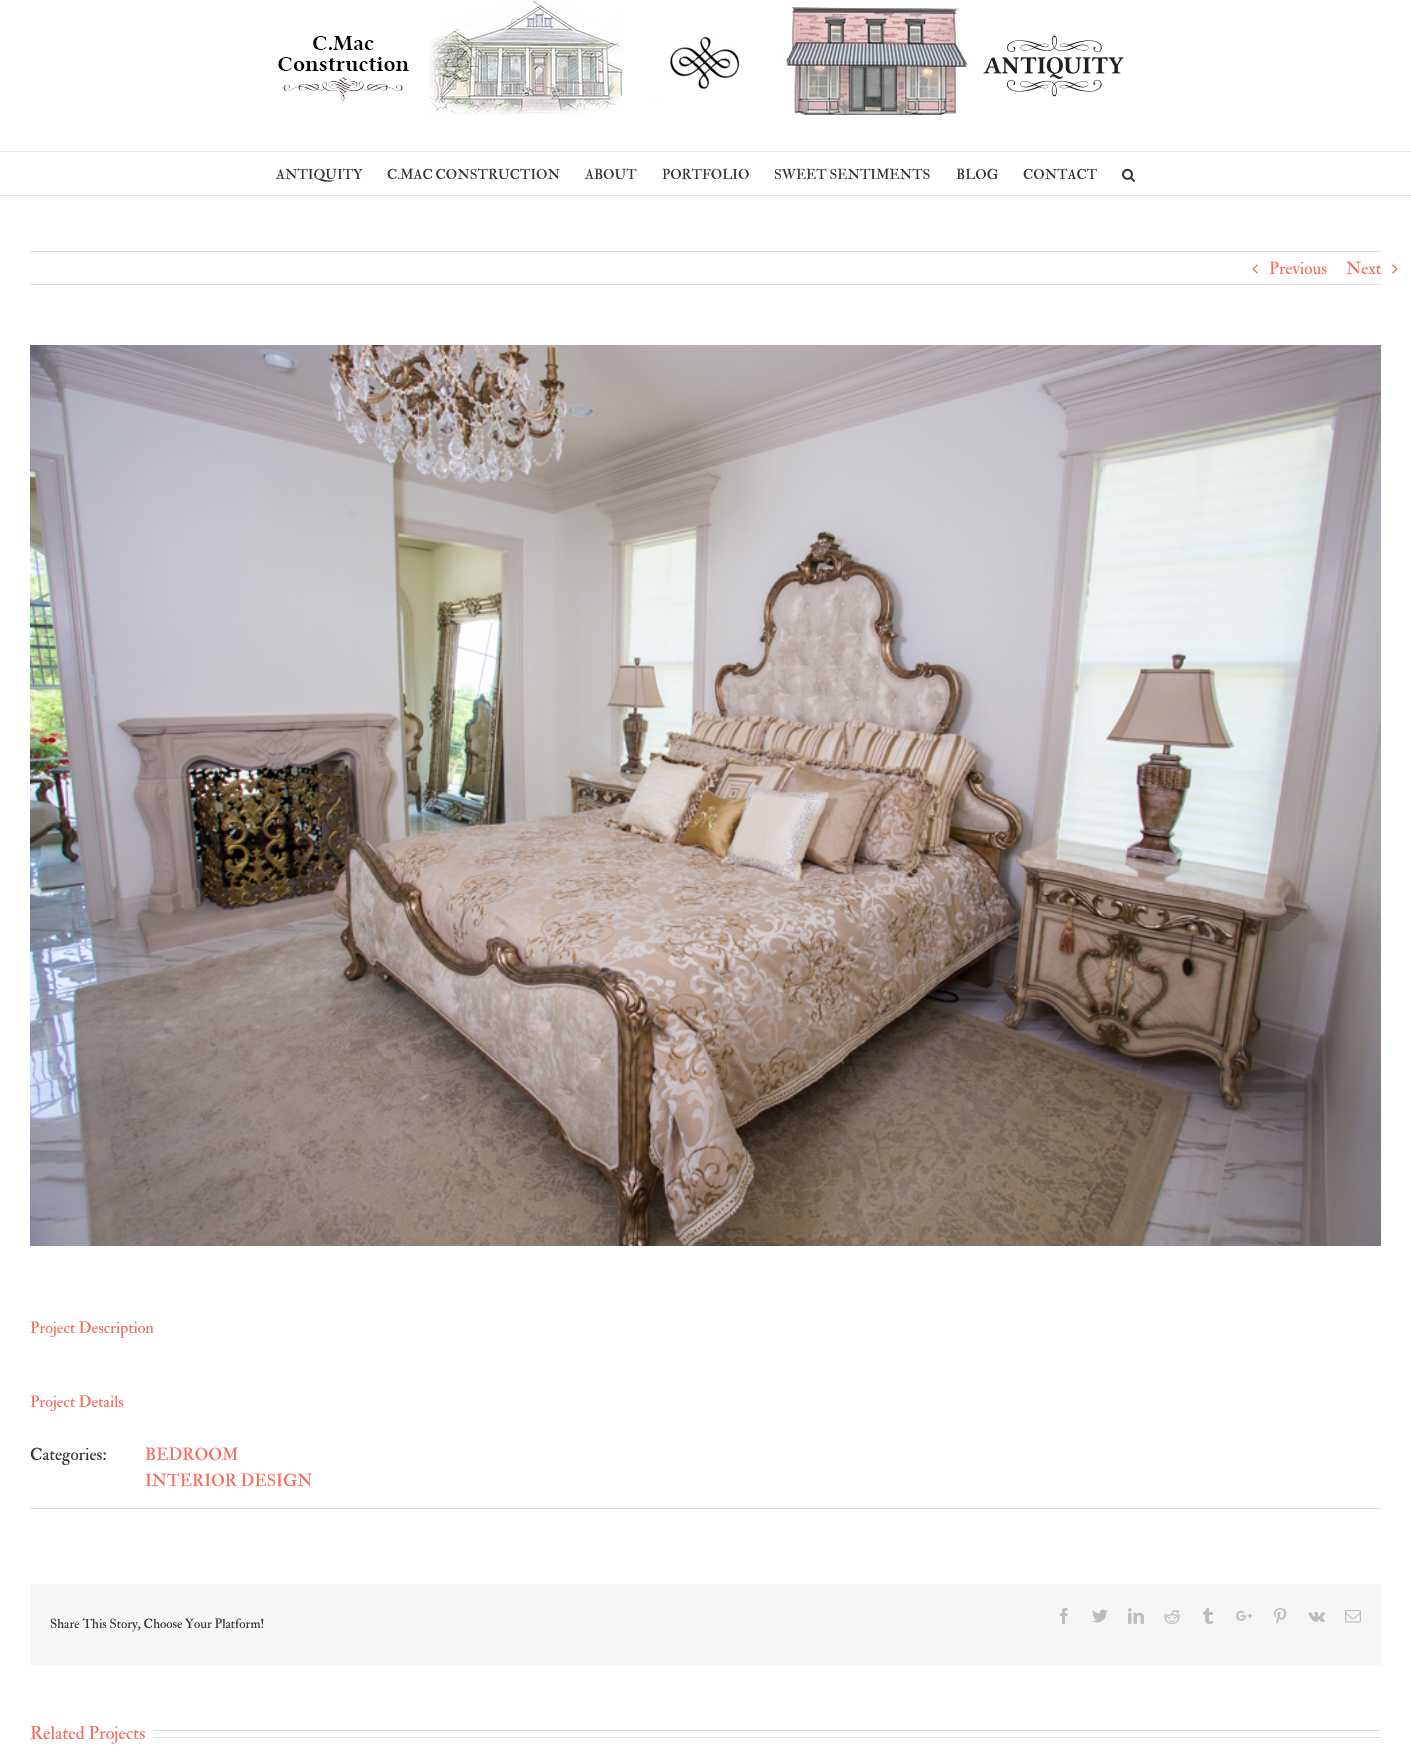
static SkFont makeFont(const char* family, int weight, float size, bool italic = false) {
  SkFontStyle style(weight, SkFontStyle::kNormal_Width,
    italic ? SkFontStyle::kItalic_Slant : SkFontStyle::kUpright_Slant);
  SkFont result(fontMgr->matchFamilyStyle(family, style), size);
  result.setSubpixel(true);
  return result;
}

static void text(SkCanvas* c, const char* s, float x, float y, const SkFont& font, SkColor color) {
  SkPaint ink(SkColor4f::FromColor(color));
  ink.setAntiAlias(true);
  c->drawString(s, x, y, font, ink);
}

static void box(SkCanvas* c, float l, float t, float r, float b, SkColor color) {
  SkPaint ink(SkColor4f::FromColor(color));
  ink.setAntiAlias(true);
  c->drawRect(SkRect::MakeLTRB(l, t, r, b), ink);
}

static void picture(SkCanvas* c, const char* path, float l, float t, float r, float b) {
  auto image = SkImages::DeferredFromEncodedData(SkData::MakeFromFileName(path));
  c->drawImageRect(image, SkRect::MakeLTRB(l, t, r, b), SkSamplingOptions());
}

void draw(SkCanvas* c) {
  SkPaint paint;
  paint.setAntiAlias(true);
  c->clear(0xffffffff);
  box(c, 0, 151, 1411, 152, 0xffe5e5e5);
  picture(c, "img_01.png", 278, 1, 1124, 115);
  box(c, 0, 195, 1411, 196, 0xffe5e5e5);
  SkFont face1 = makeFont("IM FELL Double Pica", 400, 14);
  text(c, "ANTIQUITY", 276, 179, face1, 0xff333333);
  text(c, "C.MAC CONSTRUCTION", 387, 179, face1, 0xff333333);
  text(c, "ABOUT", 585, 179, face1, 0xff333333);
  text(c, "PORTFOLIO", 662, 179, face1, 0xff333333);
  text(c, "SWEET SENTIMENTS", 774, 179, face1, 0xff333333);
  text(c, "BLOG", 956, 179, face1, 0xff333333);
  text(c, "CONTACT", 1023, 179, face1, 0xff333333);
  picture(c, "img_02.png", 1122, 168, 1135, 182);
  box(c, 30, 251, 1381, 252, 0xffe0dede);
  box(c, 30, 284, 1381, 285, 0xffe0dede);
  picture(c, "img_03.png", 1252, 264, 1258, 274);
  SkFont face2 = makeFont("IM FELL Double Pica", 400, 17);
  text(c, "Previous", 1269, 274, face2, 0xfff76a5d);
  text(c, "Next", 1346, 274, face2, 0xfff76a5d);
  picture(c, "img_04.png", 1392, 264, 1398, 274);
  picture(c, "img_05.png", 30, 345, 1381, 1246);
  SkFont face3 = makeFont("IM FELL Double Pica", 400, 16);
  text(c, "Project Description", 30, 1333, face3, 0xfff76a5d);
  text(c, "Project Details", 30, 1407, face3, 0xfff76a5d);
  box(c, 30, 1508, 1381, 1509, 0xffe0dede);
  text(c, "Categories:", 30, 1460, face2, 0xff333333);
  text(c, "BEDROOM", 145, 1460, face2, 0xfff76a5d);
  text(c, "INTERIOR DESIGN", 145, 1486, face2, 0xfff76a5d);
  box(c, 30, 1584, 1381, 1665, 0xfff6f6f6);
  SkFont face4 = makeFont("IM FELL Double Pica", 400, 13);
  text(c, "Share This Story, Choose Your Platform!", 50, 1628, face4, 0xff333333);
  picture(c, "img_06.png", 1060, 1608, 1068, 1624);
  picture(c, "img_07.png", 1092, 1609, 1108, 1623);
  picture(c, "img_08.png", 1128, 1608, 1144, 1624);
  picture(c, "img_09.png", 1164, 1610, 1180, 1624);
  picture(c, "img_10.png", 1203, 1608, 1213, 1624);
  picture(c, "img_11.png", 1236, 1610, 1252, 1621);
  picture(c, "img_12.png", 1273, 1608, 1287, 1624);
  picture(c, "img_13.png", 1308, 1612, 1325, 1622);
  picture(c, "img_14.png", 1345, 1610, 1361, 1623);
  SkFont face5 = makeFont("IM FELL Double Pica", 400, 18);
  text(c, "Related Projects", 30, 1739, face5, 0xfff76a5d);
  box(c, 153, 1730, 1381, 1731, 0xffe0dede);
  box(c, 153, 1737, 1381, 1738, 0xffe0dede);
}
